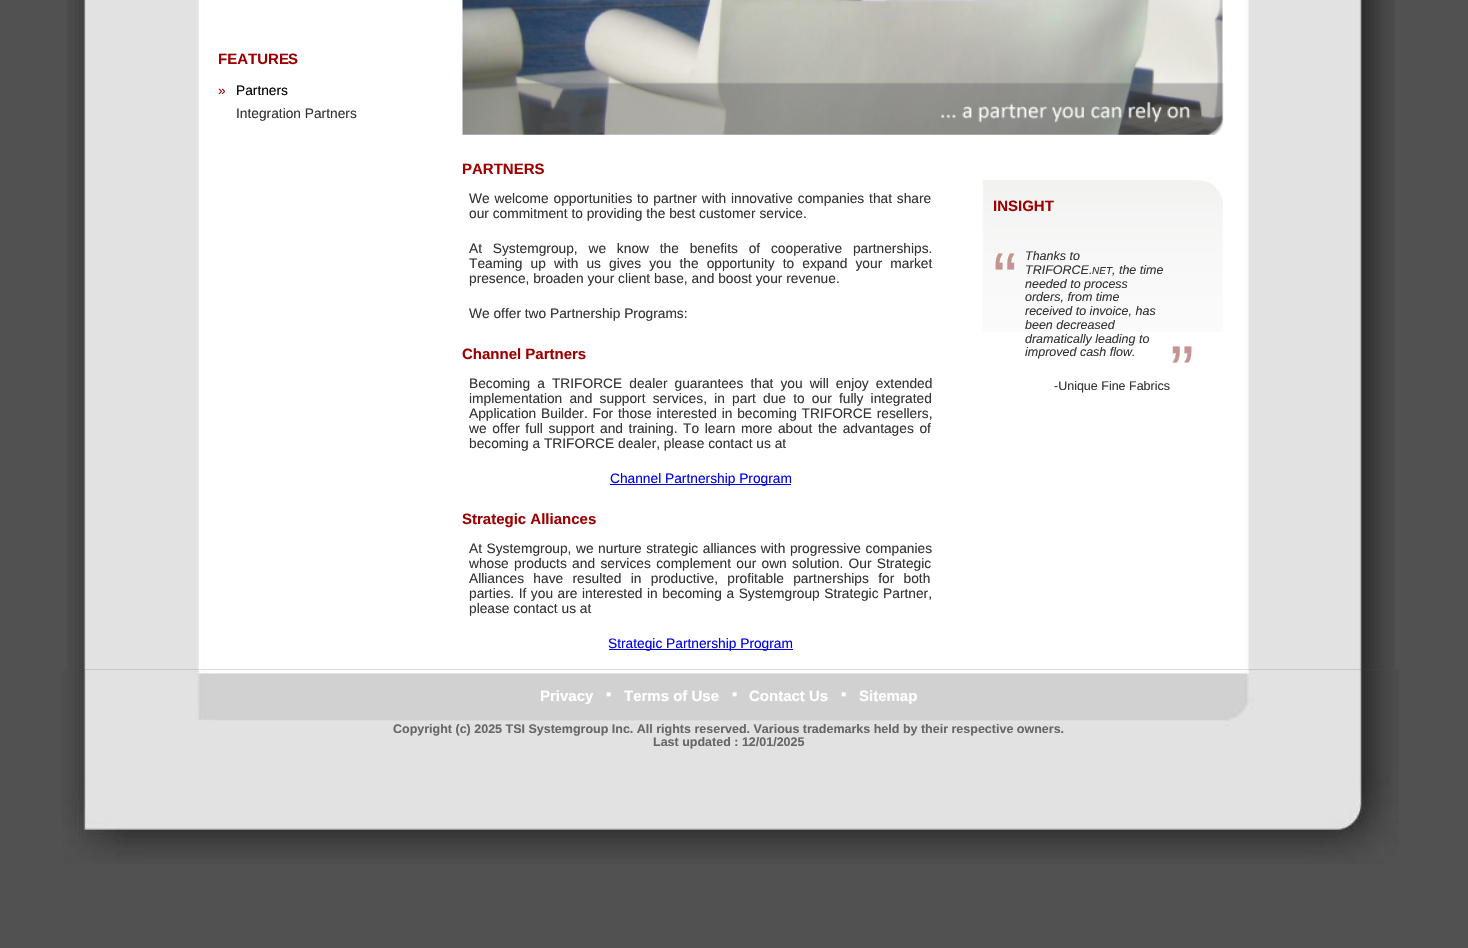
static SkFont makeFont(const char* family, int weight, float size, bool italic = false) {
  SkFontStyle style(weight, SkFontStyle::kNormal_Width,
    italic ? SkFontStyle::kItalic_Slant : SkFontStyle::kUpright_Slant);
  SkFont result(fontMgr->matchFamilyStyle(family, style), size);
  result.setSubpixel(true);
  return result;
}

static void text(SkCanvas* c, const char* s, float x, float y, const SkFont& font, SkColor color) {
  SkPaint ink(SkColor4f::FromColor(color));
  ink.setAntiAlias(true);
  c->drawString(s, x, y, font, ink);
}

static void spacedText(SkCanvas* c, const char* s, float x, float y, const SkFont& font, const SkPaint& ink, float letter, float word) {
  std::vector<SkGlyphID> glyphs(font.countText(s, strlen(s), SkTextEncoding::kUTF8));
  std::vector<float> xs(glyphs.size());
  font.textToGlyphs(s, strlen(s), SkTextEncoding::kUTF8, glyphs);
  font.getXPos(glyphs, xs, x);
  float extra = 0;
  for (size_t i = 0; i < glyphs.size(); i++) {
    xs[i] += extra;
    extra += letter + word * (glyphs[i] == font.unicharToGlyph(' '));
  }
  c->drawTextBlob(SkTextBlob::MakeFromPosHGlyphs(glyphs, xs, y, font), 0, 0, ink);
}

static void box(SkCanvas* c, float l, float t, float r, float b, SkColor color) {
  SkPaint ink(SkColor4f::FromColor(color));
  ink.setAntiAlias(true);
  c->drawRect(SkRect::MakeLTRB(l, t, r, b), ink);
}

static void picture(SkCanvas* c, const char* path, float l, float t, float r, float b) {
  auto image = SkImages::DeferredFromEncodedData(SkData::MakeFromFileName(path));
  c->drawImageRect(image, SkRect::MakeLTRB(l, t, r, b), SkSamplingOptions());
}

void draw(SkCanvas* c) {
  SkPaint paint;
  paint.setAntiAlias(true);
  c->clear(0xff515151);
  picture(c, "img_01.png", 67, 0, 1395, 670);
  SkFont face1 = makeFont("Liberation Sans", 700, 15);
  text(c, "FEATUR", 218, 64, face1, 0xff9d0000);
  paint.setColor(0xff9d0000);
  spacedText(c, "ES", 279, 64, face1, paint, -1, 0);
  SkFont face2 = makeFont("Liberation Sans", 400, 13.75f);
  text(c, "»", 218, 95, face2, 0xff9d0000);
  text(c, "Partners", 236, 95, face2, 0xff000000);
  text(c, "Integration Partners", 236, 118, face2, 0xff333333);
  picture(c, "img_02.png", 462, 0, 1224, 135);
  text(c, "PARTNERS", 462, 174, face1, 0xff9d0000);
  paint.setColor(0xff333333);
  spacedText(c, "We welcome opportunities to partner with innovative companies that share", 469, 203, face2, paint, 0, 1);
  text(c, "our commitment to providing the best customer service.", 469, 218, face2, 0xff333333);
  spacedText(c, "At Systemgroup, we know the benefits of cooperative partnerships.", 469, 253, face2, paint, 0, 7);
  spacedText(c, "Teaming up with us gives you the opportunity to expand your market", 469, 268, face2, paint, 0, 4.25f);
  text(c, "presence, broaden your client base, and boost your revenue.", 469, 283, face2, 0xff333333);
  text(c, "We offer two Partnership Programs:", 469, 318, face2, 0xff333333);
  text(c, "Channel Partners", 462, 359, face1, 0xff9d0000);
  spacedText(c, "Becoming a TRIFORCE dealer guarantees that you will enjoy extended", 469, 388, face2, paint, 0, 3.25f);
  spacedText(c, "implementation and support services, in part due to our fully integrated", 469, 403, face2, paint, 0, 3.4f);
  spacedText(c, "Application Builder. For those interested in becoming TRIFORCE resellers,", 469, 418, face2, paint, 0, 1);
  spacedText(c, "we offer full support and training. To learn more about the advantages of", 469, 433, face2, paint, 0, 1.8f);
  text(c, "becoming a TRIFORCE dealer, please contact us at", 469, 448, face2, 0xff333333);
  box(c, 610, 484, 791, 485, 0xff0000ee);
  text(c, "Channel Partnership Program", 610, 483, face2, 0xff0000ee);
  text(c, "Strategic Alliances", 462, 524, face1, 0xff9d0000);
  spacedText(c, "At Systemgroup, we nurture strategic alliances with progressive companies", 469, 553, face2, paint, 0, 0.75f);
  spacedText(c, "whose products and services complement our own solution. Our Strategic", 469, 568, face2, paint, 0, 1.5f);
  spacedText(c, "Alliances have resulted in productive, profitable partnerships for both", 469, 583, face2, paint, 0, 5.5f);
  spacedText(c, "parties. If you are interested in becoming a Systemgroup Strategic Partner,", 469, 598, face2, paint, 0, 0.75f);
  text(c, "please contact us at", 469, 613, face2, 0xff333333);
  box(c, 609, 649, 793, 650, 0xff0000ee);
  text(c, "Strategic Partnership Program", 608, 648, face2, 0xff0000ee);
  picture(c, "img_03.png", 982, 180, 1223, 332);
  text(c, "INSIGHT", 993, 211, face1, 0xff9d0000);
  SkFont face3 = makeFont("Liberation Sans", 400, 72);
  text(c, "“", 993, 303, face3, 0xffc59392);
  SkFont face4 = makeFont("Liberation Sans", 400, 12.5f, true);
  text(c, "Thanks to", 1025, 260, face4, 0xff333333);
  text(c, "TRIFORCE.", 1025, 274, face4, 0xff333333);
  SkFont face5 = makeFont("Liberation Sans", 400, 10, true);
  text(c, "NET", 1092, 274, face5, 0xff333333);
  text(c, ", the time", 1112, 274, face4, 0xff333333);
  text(c, "needed to process", 1025, 288, face4, 0xff333333);
  text(c, "orders, from time", 1025, 301, face4, 0xff333333);
  text(c, "received to invoice, has", 1025, 315, face4, 0xff333333);
  text(c, "been decreased", 1025, 329, face4, 0xff333333);
  text(c, "dramatically leading to", 1025, 343, face4, 0xff333333);
  text(c, "improved cash flow.", 1025, 356, face4, 0xff333333);
  SkFont face6 = makeFont("Liberation Sans", 400, 12.5f);
  text(c, "-Unique Fine Fabrics", 1054, 390, face6, 0xff333333);
  text(c, "”", 1170, 396, face3, 0xffc59392);
  picture(c, "img_04.png", 62, 669, 1399, 864);
  text(c, "Privacy", 540, 701, face1, 0xffffffff);
  text(c, "▪", 606, 699, face1, 0xffffffff);
  text(c, "Terms of Use", 624, 701, face1, 0xffffffff);
  text(c, "▪", 732, 699, face1, 0xffffffff);
  text(c, "Contact Us", 749, 701, face1, 0xffffffff);
  text(c, "▪", 841, 699, face1, 0xffffffff);
  text(c, "Sitemap", 859, 701, face1, 0xffffffff);
  SkFont face7 = makeFont("Liberation Sans", 700, 12.5f);
  text(c, "Copyright (c) 2025 TSI Systemgroup Inc. All rights reserved. Various trademarks held by their respective owners.", 393, 733, face7, 0xff666666);
  text(c, "Last updated : 12/01/2025", 653, 746, face7, 0xff666666);
}
